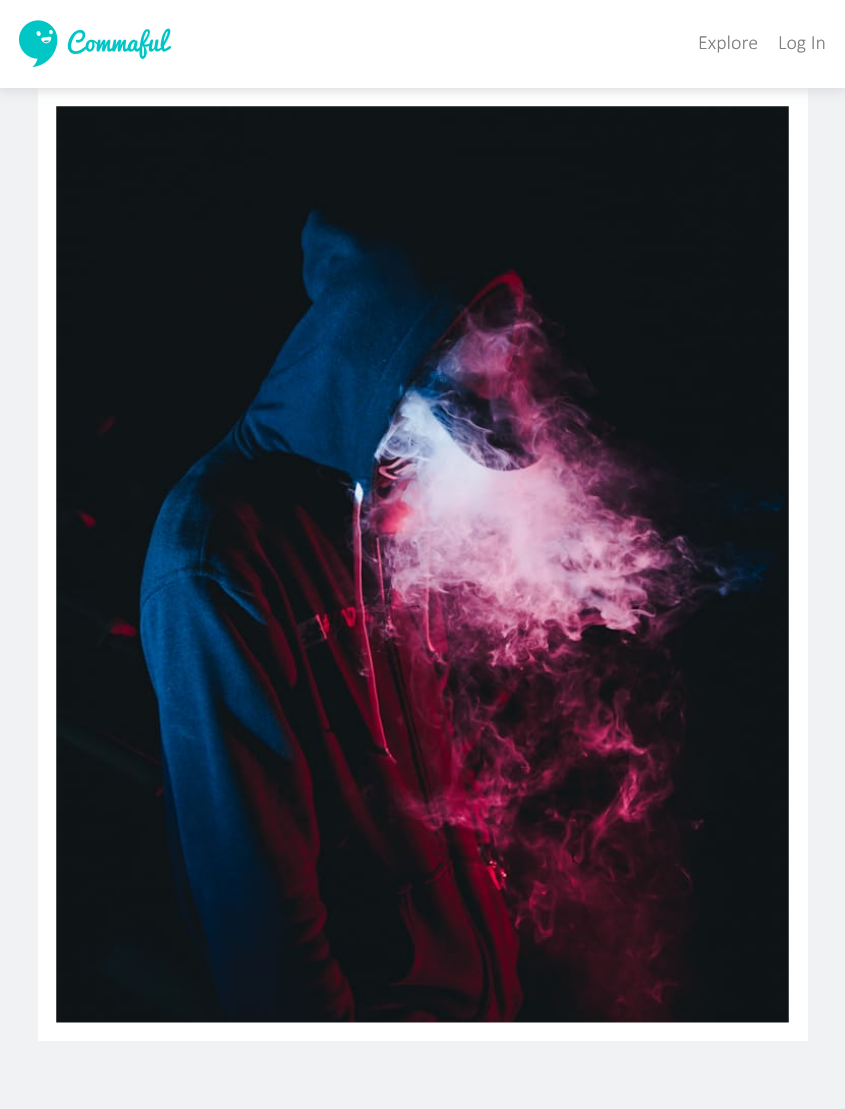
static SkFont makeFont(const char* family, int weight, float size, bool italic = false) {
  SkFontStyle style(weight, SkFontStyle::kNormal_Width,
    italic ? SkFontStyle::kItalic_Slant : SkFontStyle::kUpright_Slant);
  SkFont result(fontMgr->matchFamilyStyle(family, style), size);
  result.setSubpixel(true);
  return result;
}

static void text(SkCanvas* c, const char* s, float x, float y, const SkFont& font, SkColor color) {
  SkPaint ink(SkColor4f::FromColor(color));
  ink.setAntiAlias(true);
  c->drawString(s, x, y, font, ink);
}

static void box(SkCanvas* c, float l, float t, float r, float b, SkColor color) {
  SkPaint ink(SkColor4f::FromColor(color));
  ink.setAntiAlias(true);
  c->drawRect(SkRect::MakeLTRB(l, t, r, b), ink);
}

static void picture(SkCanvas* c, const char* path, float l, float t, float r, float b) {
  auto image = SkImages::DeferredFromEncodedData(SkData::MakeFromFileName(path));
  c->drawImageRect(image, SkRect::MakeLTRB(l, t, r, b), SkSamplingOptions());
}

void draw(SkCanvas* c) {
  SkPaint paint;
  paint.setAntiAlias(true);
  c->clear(0xffffffff);
  box(c, 0, 88, 845, 1109, 0xfff1f2f4);
  paint.setStyle(SkPaint::kStroke_Style);
  paint.setStrokeWidth(19);
  paint.setColor(0xffffffff);
  c->drawRect(SkRect::MakeLTRB(47.5f, 97.5f, 798.5f, 1031.5f), paint);
  picture(c, "img_02.png", 56, 106, 789, 1023);
  c->save();
  c->clipPath(SkPathBuilder(SkPathFillType::kEvenOdd).moveTo(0, 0).lineTo(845, 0).lineTo(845, 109).lineTo(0, 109).close().moveTo(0, 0).lineTo(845, 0).lineTo(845, 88).lineTo(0, 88).close().detach(), true);
  paint.setStyle(SkPaint::kFill_Style);
  paint.setColor(0x1a214163);
  paint.setMaskFilter(SkMaskFilter::MakeBlur(kNormal_SkBlurStyle, 6));
  c->drawRect(SkRect::MakeLTRB(0, 3, 845, 90), paint);
  paint.setMaskFilter(nullptr);
  c->restore();
  c->save();
  c->clipPath(SkPathBuilder(SkPathFillType::kEvenOdd).moveTo(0, 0).lineTo(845, 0).lineTo(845, 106).lineTo(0, 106).close().moveTo(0, 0).lineTo(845, 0).lineTo(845, 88).lineTo(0, 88).close().detach(), true);
  paint.setColor(0xffdcdcdc);
  paint.setMaskFilter(SkMaskFilter::MakeBlur(kNormal_SkBlurStyle, 5.5f));
  c->drawRect(SkRect::MakeLTRB(0, 0, 845, 88), paint);
  paint.setMaskFilter(nullptr);
  c->restore();
  picture(c, "img_01.png", 19, 20, 171, 68);
  SkFont face1 = makeFont("Calibri", 300, 20);
  text(c, "Explore", 698, 49, face1, 0xff808080);
  text(c, "Log In", 778, 49, face1, 0xff808080);
}
